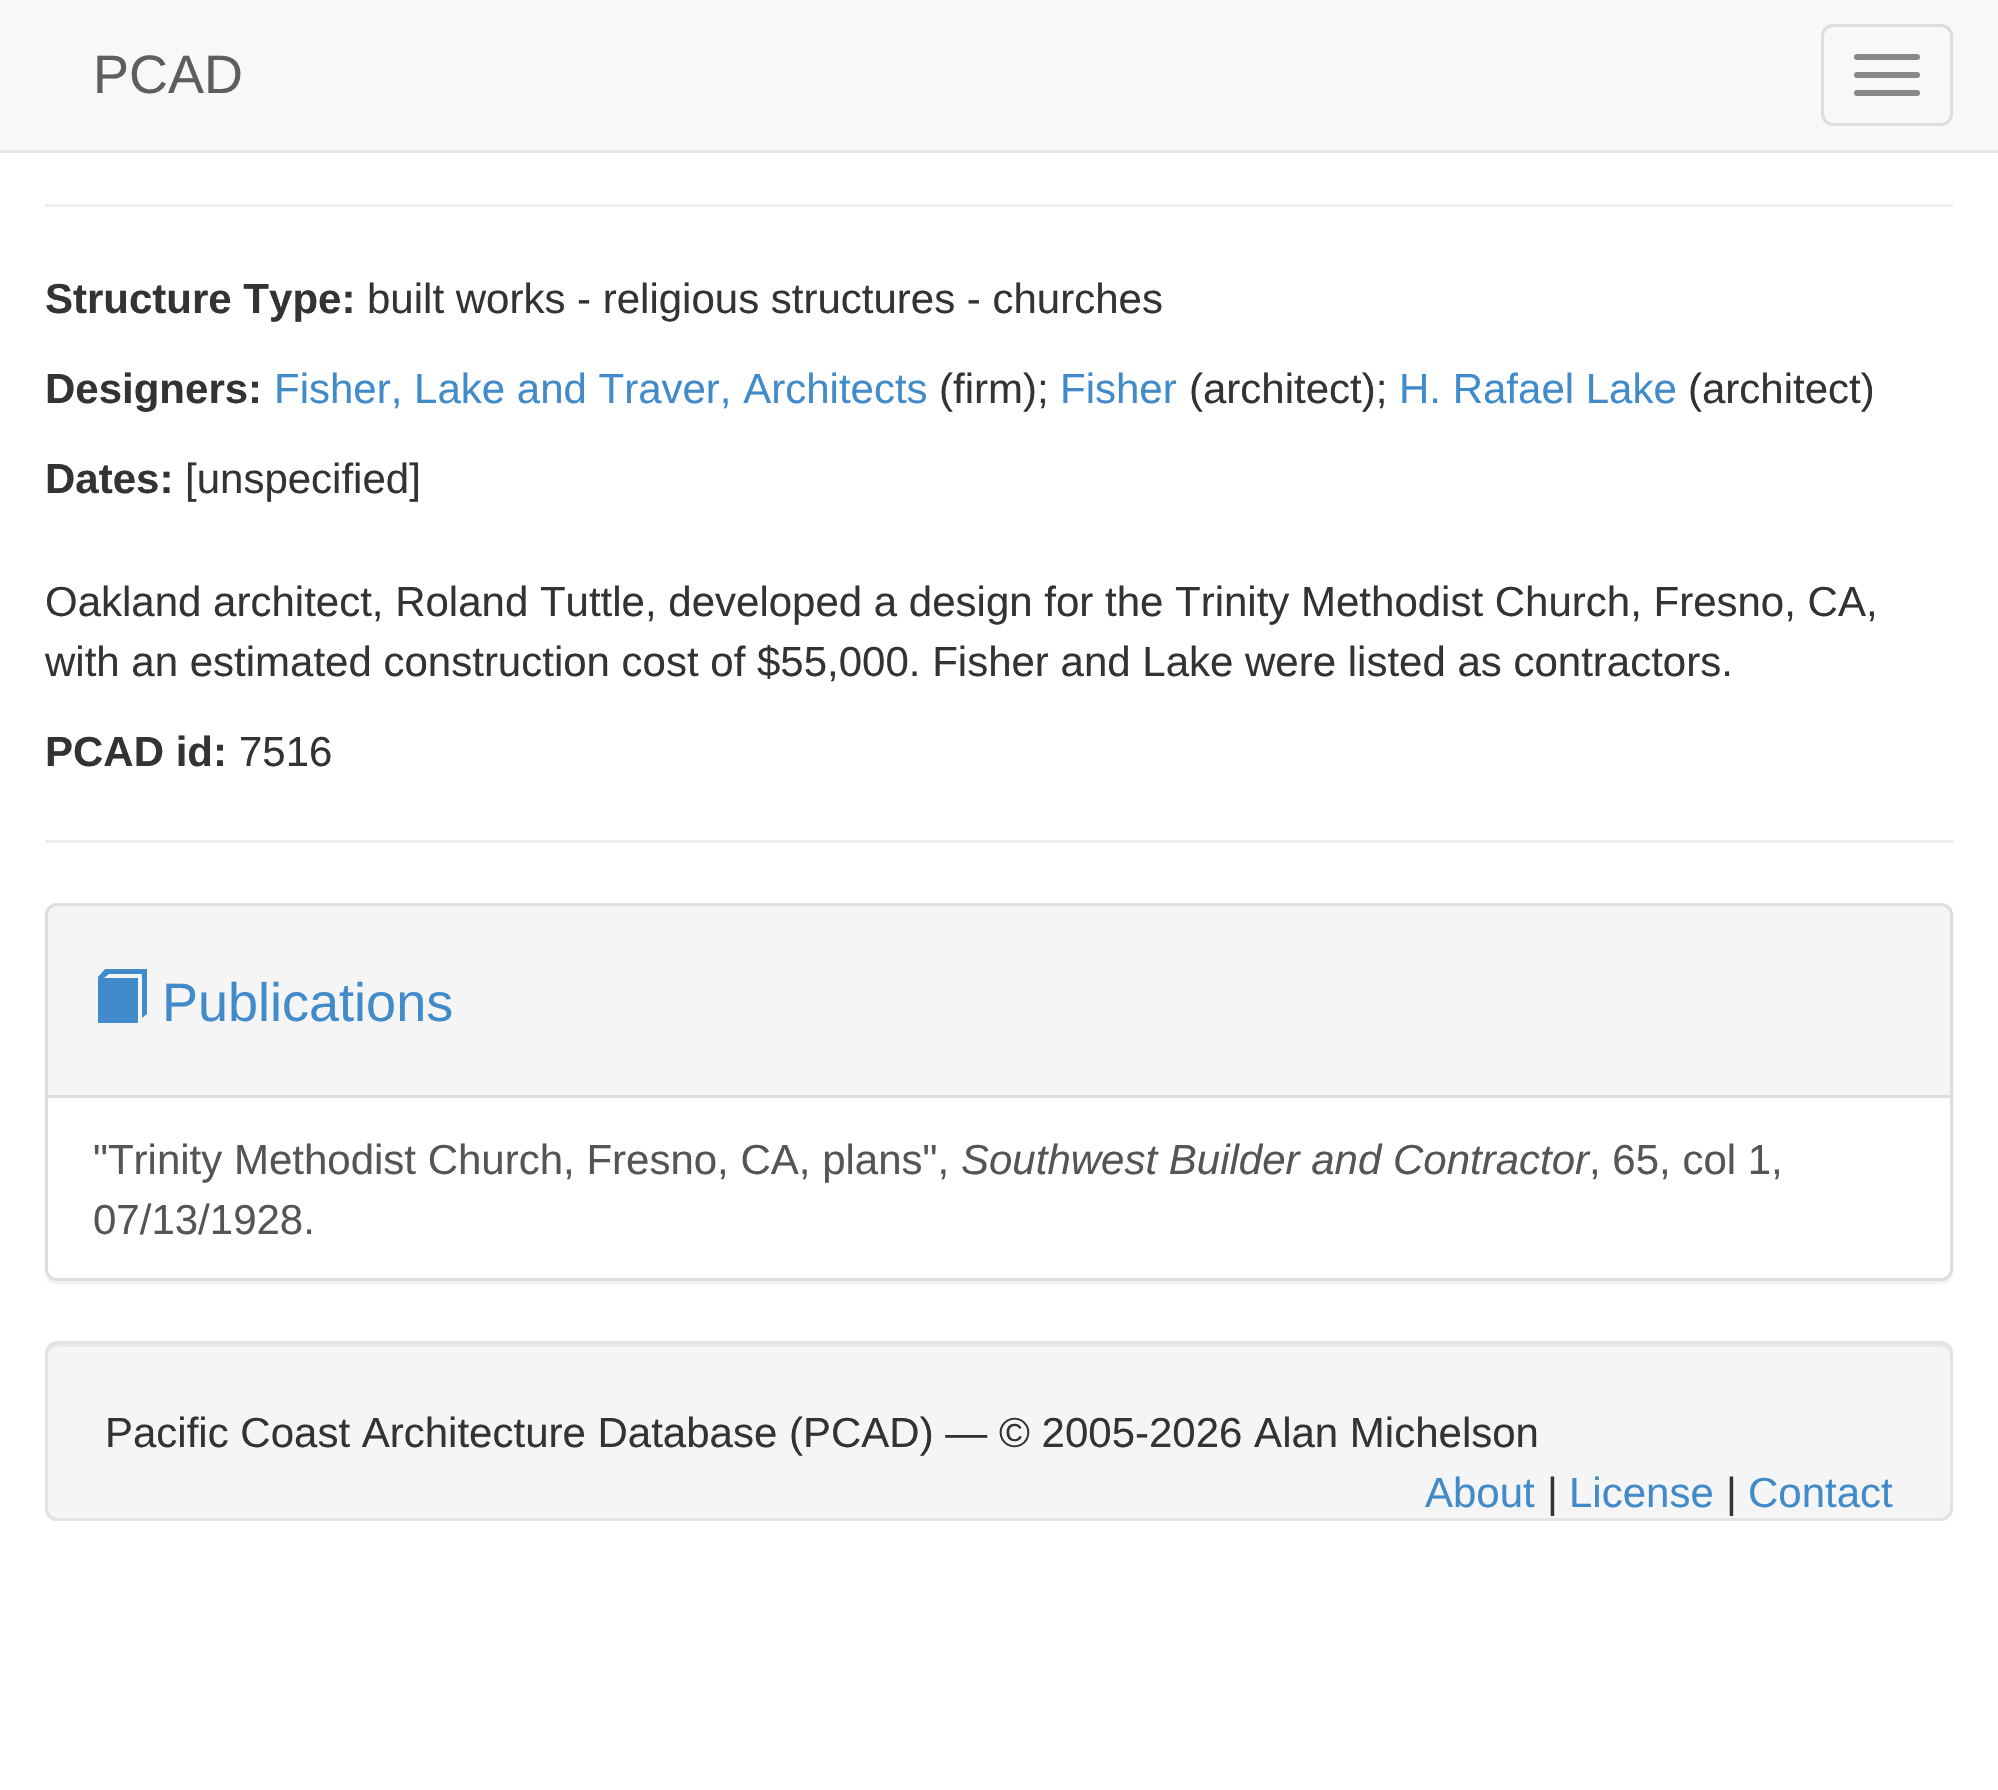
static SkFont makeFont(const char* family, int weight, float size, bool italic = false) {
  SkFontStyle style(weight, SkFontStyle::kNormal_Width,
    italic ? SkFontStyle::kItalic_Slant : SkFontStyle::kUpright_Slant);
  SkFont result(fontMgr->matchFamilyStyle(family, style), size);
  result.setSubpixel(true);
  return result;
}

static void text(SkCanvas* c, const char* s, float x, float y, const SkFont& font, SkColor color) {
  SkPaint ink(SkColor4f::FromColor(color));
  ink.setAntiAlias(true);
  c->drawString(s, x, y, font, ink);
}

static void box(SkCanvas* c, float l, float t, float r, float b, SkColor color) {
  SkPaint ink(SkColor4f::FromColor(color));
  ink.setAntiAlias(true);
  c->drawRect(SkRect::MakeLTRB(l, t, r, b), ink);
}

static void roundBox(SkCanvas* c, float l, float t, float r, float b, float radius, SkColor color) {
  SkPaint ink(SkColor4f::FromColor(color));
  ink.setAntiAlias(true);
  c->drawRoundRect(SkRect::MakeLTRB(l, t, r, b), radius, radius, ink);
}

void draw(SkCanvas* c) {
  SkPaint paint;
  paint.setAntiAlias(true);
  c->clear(0xffffffff);
  box(c, 0, 0, 1998, 150, 0xfff8f8f8);
  box(c, 0, 150, 1998, 153, 0xffe7e7e7);
  SkFont face1 = makeFont("Liberation Sans", 400, 54);
  text(c, "PCAD", 93, 93, face1, 0xff5e5e5e);
  paint.setStyle(SkPaint::kStroke_Style);
  paint.setStrokeWidth(3);
  paint.setColor(0xffdddddd);
  c->drawRoundRect(SkRect::MakeLTRB(1822.5f, 25.5f, 1951.5f, 124.5f), 10.5f, 10.5f, paint);
  roundBox(c, 1854, 54, 1920, 60, 3, 0xff888888);
  roundBox(c, 1854, 72, 1920, 78, 3, 0xff888888);
  roundBox(c, 1854, 90, 1920, 96, 3, 0xff888888);
  box(c, 45, 204, 1953, 207, 0xffeeeeee);
  SkFont face2 = makeFont("Liberation Sans", 700, 42);
  text(c, "Structure Type:", 45, 313, face2, 0xff333333);
  SkFont face3 = makeFont("Liberation Sans", 400, 42);
  text(c, "built works - religious structures - churches", 367, 313, face3, 0xff333333);
  text(c, "Designers:", 45, 403, face2, 0xff333333);
  text(c, "Fisher, Lake and Traver, Architects", 274, 403, face3, 0xff428bca);
  text(c, "(firm);", 939, 403, face3, 0xff333333);
  text(c, "Fisher", 1060, 403, face3, 0xff428bca);
  text(c, "(architect);", 1189, 403, face3, 0xff333333);
  text(c, "H. Rafael Lake", 1399, 403, face3, 0xff428bca);
  text(c, "(architect)", 1688, 403, face3, 0xff333333);
  text(c, "Dates:", 45, 493, face2, 0xff333333);
  text(c, "[unspecified]", 185, 493, face3, 0xff333333);
  text(c, "Oakland architect, Roland Tuttle, developed a design for the Trinity Methodist Church, Fresno, CA,", 45, 616, face3, 0xff333333);
  text(c, "with an estimated construction cost of $55,000. Fisher and Lake were listed as contractors.", 45, 676, face3, 0xff333333);
  text(c, "PCAD id:", 45, 766, face2, 0xff333333);
  text(c, "7516", 239, 766, face3, 0xff333333);
  box(c, 45, 840, 1953, 843, 0xffeeeeee);
  paint.setStyle(SkPaint::kFill_Style);
  paint.setColor(0x0d000000);
  paint.setMaskFilter(SkMaskFilter::MakeBlur(kNormal_SkBlurStyle, 1.5f));
  c->drawRoundRect(SkRect::MakeLTRB(45, 906, 1953, 1284), 12, 12, paint);
  paint.setMaskFilter(nullptr);
  paint.setStyle(SkPaint::kStroke_Style);
  paint.setColor(0xffdddddd);
  c->drawRoundRect(SkRect::MakeLTRB(46.5f, 904.5f, 1951.5f, 1279.5f), 10.5f, 10.5f, paint);
  paint.setStyle(SkPaint::kFill_Style);
  paint.setColor(0xfff5f5f5);
  c->drawPath(SkPathBuilder().moveTo(57, 906).lineTo(1941, 906).cubicTo(1946, 906, 1950, 910, 1950, 915).lineTo(1950, 1098).lineTo(48, 1098).lineTo(48, 915).cubicTo(48, 910, 52, 906, 57, 906).close().detach(), paint);
  box(c, 48, 1095, 1950, 1098, 0xffdddddd);
  paint.setColor(0xff428bca);
  c->drawPath(SkPathBuilder().moveTo(98, 1023).lineTo(98, 977).lineTo(105, 969).lineTo(147, 969).lineTo(147, 1014).lineTo(142, 1018).lineTo(142, 974).lineTo(109, 974).lineTo(104, 978).lineTo(138, 978).lineTo(138, 1023).close().detach(), paint);
  text(c, "Publications", 162, 1021, face1, 0xff428bca);
  paint.setColor(0xffffffff);
  c->drawPath(SkPathBuilder().moveTo(48, 1098).lineTo(1950, 1098).lineTo(1950, 1269).cubicTo(1950, 1274, 1946, 1278, 1941, 1278).lineTo(57, 1278).cubicTo(52, 1278, 48, 1274, 48, 1269).close().detach(), paint);
  text(c, "\"Trinity Methodist Church, Fresno, CA, plans\",", 93, 1174, face3, 0xff555555);
  SkFont face4 = makeFont("Liberation Sans", 400, 42, true);
  text(c, "Southwest Builder and Contractor", 961, 1174, face4, 0xff555555);
  text(c, ", 65, col 1,", 1589, 1174, face3, 0xff555555);
  text(c, "07/13/1928.", 93, 1234, face3, 0xff555555);
  roundBox(c, 45, 1341, 1953, 1521, 12, 0xfff5f5f5);
  paint.setColor(0xffe9e9e9);
  c->drawPath(SkPathBuilder().moveTo(57, 1347).lineTo(1941, 1347).cubicTo(1946, 1347, 1950, 1351, 1950, 1356).lineTo(1950, 1353).cubicTo(1950, 1348, 1946, 1344, 1941, 1344).lineTo(57, 1344).cubicTo(52, 1344, 48, 1348, 48, 1353).lineTo(48, 1356).cubicTo(48, 1351, 52, 1347, 57, 1347).close().detach(), paint);
  paint.setStyle(SkPaint::kStroke_Style);
  paint.setColor(0xffe3e3e3);
  c->drawRoundRect(SkRect::MakeLTRB(46.5f, 1342.5f, 1951.5f, 1519.5f), 10.5f, 10.5f, paint);
  text(c, "Pacific Coast Architecture Database (PCAD) — © 2005-2026 Alan Michelson", 105, 1447, face3, 0xff333333);
  text(c, "About", 1425, 1507, face3, 0xff428bca);
  text(c, "|", 1547, 1507, face3, 0xff333333);
  text(c, "License", 1569, 1507, face3, 0xff428bca);
  text(c, "|", 1726, 1507, face3, 0xff333333);
  text(c, "Contact", 1748, 1507, face3, 0xff428bca);
}
